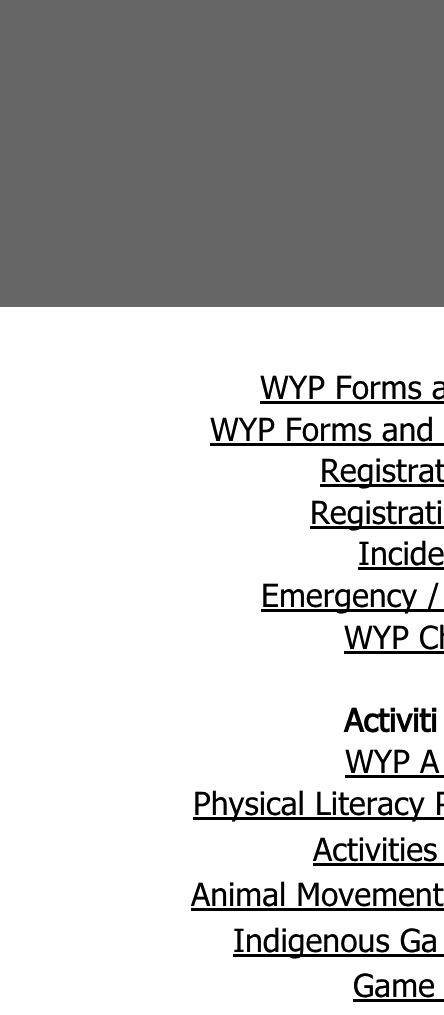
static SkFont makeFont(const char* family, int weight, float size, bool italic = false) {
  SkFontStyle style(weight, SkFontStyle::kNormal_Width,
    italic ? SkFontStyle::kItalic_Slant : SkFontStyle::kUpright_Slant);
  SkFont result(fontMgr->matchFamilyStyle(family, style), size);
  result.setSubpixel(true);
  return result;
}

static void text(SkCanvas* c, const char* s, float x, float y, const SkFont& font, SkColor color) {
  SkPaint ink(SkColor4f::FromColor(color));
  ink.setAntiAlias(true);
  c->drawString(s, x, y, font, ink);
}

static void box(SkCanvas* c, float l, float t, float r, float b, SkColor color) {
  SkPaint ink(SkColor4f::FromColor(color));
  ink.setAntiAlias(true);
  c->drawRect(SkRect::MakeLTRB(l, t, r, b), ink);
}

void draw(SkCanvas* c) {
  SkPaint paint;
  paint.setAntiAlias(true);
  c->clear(0xffffffff);
  box(c, 0, 0, 444, 307, 0xff666666);
  SkFont face1 = makeFont("tahoma", 400, 32);
  text(c, "WYP Forms a", 260, 399, face1, 0xff000000);
  box(c, 260, 401, 444, 404, 0xff000000);
  text(c, "WYP Forms and", 210, 441, face1, 0xff000000);
  box(c, 210, 443, 444, 446, 0xff000000);
  box(c, 320, 484, 444, 487, 0xff000000);
  text(c, "Registrat", 320, 482, face1, 0xff000000);
  box(c, 310, 526, 444, 529, 0xff000000);
  text(c, "Registrati", 310, 524, face1, 0xff000000);
  text(c, "Incide", 358, 565, face1, 0xff000000);
  box(c, 358, 567, 444, 570, 0xff000000);
  box(c, 261, 609, 444, 612, 0xff000000);
  text(c, "Emergency /", 261, 607, face1, 0xff000000);
  text(c, "WYP Ch", 344, 649, face1, 0xff000000);
  box(c, 344, 651, 444, 654, 0xff000000);
  SkFont face2 = makeFont("tahoma", 700, 32);
  text(c, "Activiti", 344, 732, face2, 0xff000000);
  text(c, "WYP A", 345, 773, face1, 0xff000000);
  box(c, 345, 775, 444, 778, 0xff000000);
  box(c, 193, 817, 444, 820, 0xff000000);
  text(c, "Physical Literacy P", 193, 815, face1, 0xff000000);
  text(c, "Activities", 313, 861, face1, 0xff000000);
  box(c, 313, 863, 444, 866, 0xff000000);
  text(c, "Animal Movement", 191, 906, face1, 0xff000000);
  box(c, 191, 908, 444, 911, 0xff000000);
  box(c, 233, 954, 444, 957, 0xff000000);
  text(c, "Indigenous Ga", 233, 952, face1, 0xff000000);
  text(c, "Game", 353, 997, face1, 0xff000000);
  box(c, 353, 999, 444, 1002, 0xff000000);
}
